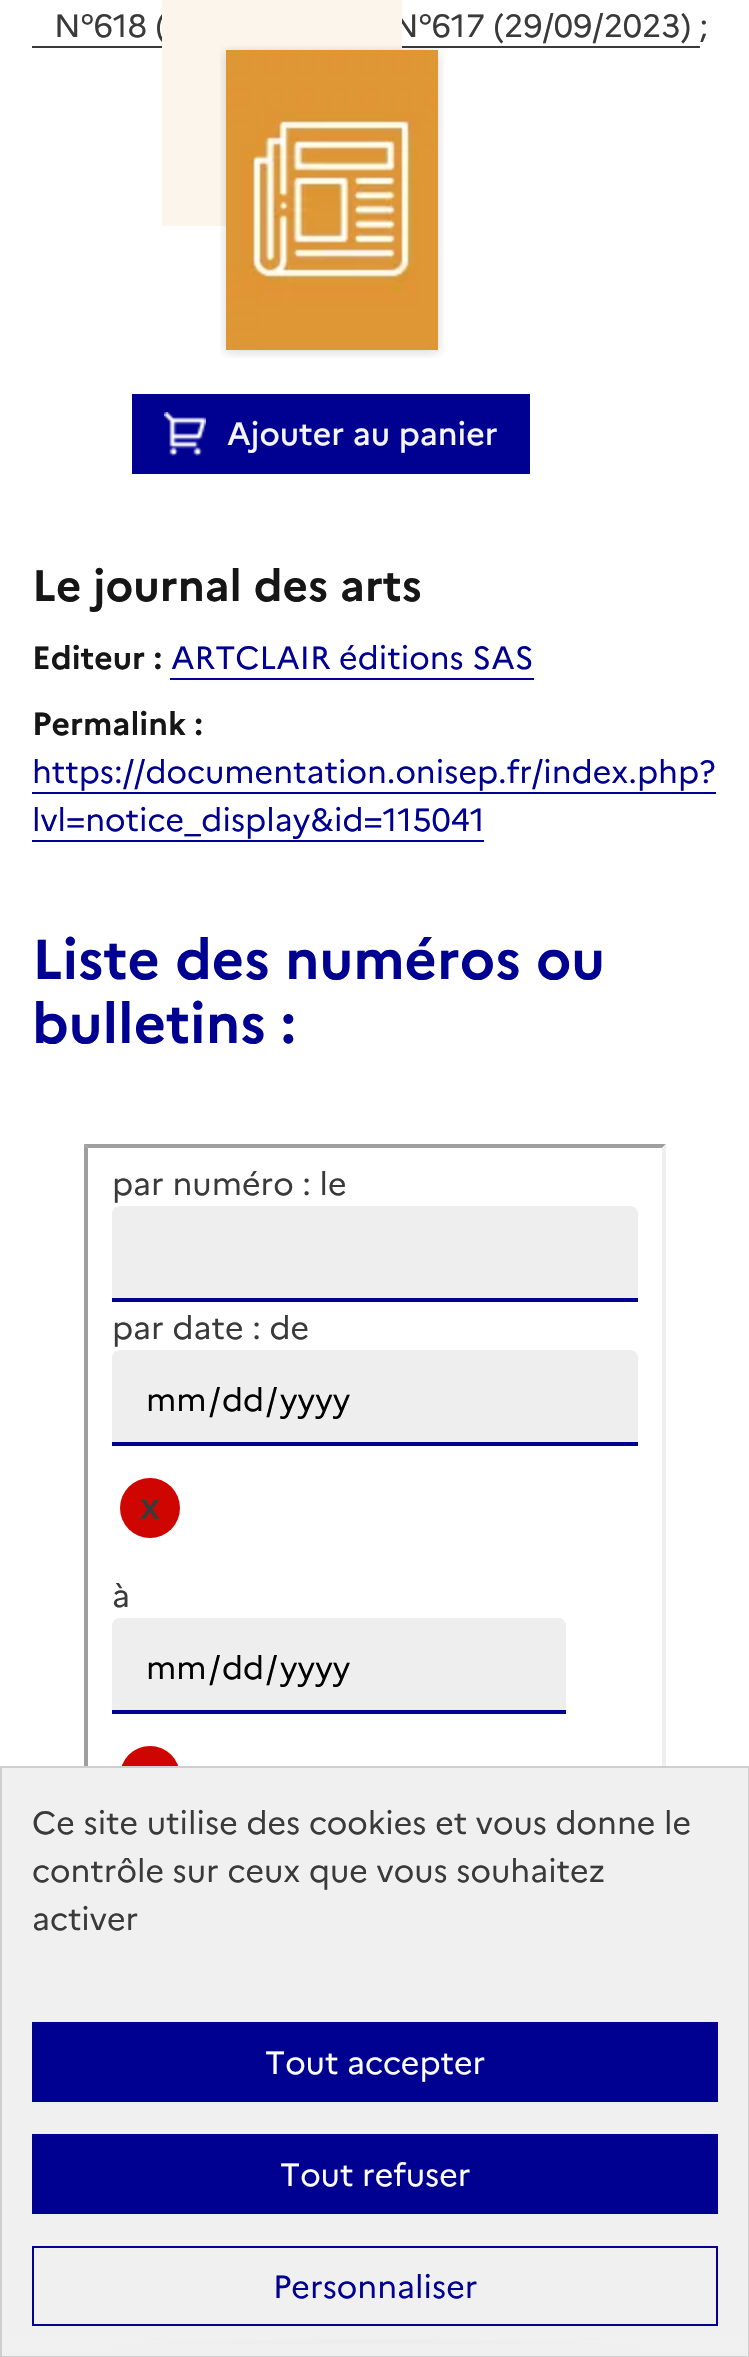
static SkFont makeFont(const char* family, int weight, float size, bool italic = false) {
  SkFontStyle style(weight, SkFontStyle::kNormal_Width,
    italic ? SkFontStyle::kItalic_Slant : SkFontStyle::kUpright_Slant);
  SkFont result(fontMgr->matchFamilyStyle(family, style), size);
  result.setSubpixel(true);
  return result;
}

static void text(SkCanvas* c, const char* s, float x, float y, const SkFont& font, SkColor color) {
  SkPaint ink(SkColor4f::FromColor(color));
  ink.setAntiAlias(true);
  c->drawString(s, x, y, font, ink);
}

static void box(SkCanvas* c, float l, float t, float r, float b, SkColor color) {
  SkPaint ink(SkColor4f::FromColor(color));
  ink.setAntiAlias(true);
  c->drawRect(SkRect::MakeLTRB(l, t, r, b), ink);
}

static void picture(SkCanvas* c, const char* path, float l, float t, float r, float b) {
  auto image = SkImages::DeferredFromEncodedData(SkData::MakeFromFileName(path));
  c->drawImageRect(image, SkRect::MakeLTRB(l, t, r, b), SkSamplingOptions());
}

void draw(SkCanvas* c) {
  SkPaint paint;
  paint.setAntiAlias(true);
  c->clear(0xffffffff);
  SkFont face1 = makeFont("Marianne", 400, 32);
  text(c, "N°618 (", 54, 37, face1, 0xff3a3a3a);
  box(c, 32, 46, 162, 48, 0xff3a3a3a);
  text(c, "N°617 (29/09/2023) ;", 392, 37, face1, 0xff3a3a3a);
  box(c, 402, 46, 700, 48, 0xff3a3a3a);
  box(c, 162, 0, 402, 226, 0xfffbf5eb);
  picture(c, "img_01.png", 220, 46, 444, 358);
  box(c, 132, 394, 530, 474, 0xff000091);
  picture(c, "img_02.png", 164, 412, 206, 456);
  SkFont face2 = makeFont("Marianne", 500, 32);
  text(c, "Ajouter au panier", 227, 445, face2, 0xfff5f5fe);
  SkFont face3 = makeFont("Marianne", 700, 44);
  text(c, "Le journal des arts", 32, 601, face3, 0xff161616);
  SkFont face4 = makeFont("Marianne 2", 700, 32);
  text(c, "Editeur :", 32, 669, face4, 0xff161616);
  text(c, "ARTCLAIR éditions SAS", 171, 669, face1, 0xff000091);
  box(c, 170, 678, 534, 680, 0xff000091);
  text(c, "Permalink :", 32, 735, face4, 0xff161616);
  text(c, "https://documentation.onisep.fr/index.php?", 32, 783, face1, 0xff000091);
  box(c, 32, 792, 716, 794, 0xff000091);
  text(c, "lvl=notice_display&id=115041", 32, 831, face1, 0xff000091);
  box(c, 32, 840, 484, 842, 0xff000091);
  SkFont face5 = makeFont("Marianne", 700, 56);
  text(c, "Liste des numéros ou", 32, 979, face5, 0xff000091);
  text(c, "bulletins :", 32, 1043, face5, 0xff000091);
  paint.setColor(0xff9f9f9f);
  c->drawPath(SkPathBuilder().moveTo(84, 1144).lineTo(666, 1144).lineTo(662, 1148).lineTo(88, 1148).close().detach(), paint);
  paint.setColor(0xffefefef);
  c->drawPath(SkPathBuilder().moveTo(666, 1144).lineTo(666, 1982).lineTo(662, 1978).lineTo(662, 1148).close().detach(), paint);
  paint.setColor(0xff9f9f9f);
  c->drawPath(SkPathBuilder().moveTo(84, 1982).lineTo(84, 1144).lineTo(88, 1148).lineTo(88, 1978).close().detach(), paint);
  text(c, "par numéro : le", 112, 1195, face1, 0xff3a3a3a);
  paint.setColor(0xffeeeeee);
  c->drawPath(SkPathBuilder().moveTo(120, 1206).lineTo(630, 1206).cubicTo(634.5f, 1206, 638, 1209.5f, 638, 1214).lineTo(638, 1302).lineTo(112, 1302).lineTo(112, 1214).cubicTo(112, 1209.5f, 115.5f, 1206, 120, 1206).close().detach(), paint);
  box(c, 112, 1298, 638, 1302, 0xff000091);
  text(c, "par date : de", 112, 1339, face1, 0xff3a3a3a);
  c->drawPath(SkPathBuilder().moveTo(120, 1350).lineTo(630, 1350).cubicTo(634.5f, 1350, 638, 1353.5f, 638, 1358).lineTo(638, 1446).lineTo(112, 1446).lineTo(112, 1358).cubicTo(112, 1353.5f, 115.5f, 1350, 120, 1350).close().detach(), paint);
  box(c, 112, 1442, 638, 1446, 0xff000091);
  text(c, "mm", 146, 1411, face1, 0xff000000);
  text(c, "/", 209, 1411, face1, 0xff000000);
  text(c, "dd", 222, 1411, face1, 0xff000000);
  text(c, "/", 266, 1411, face1, 0xff000000);
  text(c, "yyyy", 280, 1411, face1, 0xff000000);
  paint.setColor(0xffce0500);
  c->drawCircle(150, 1508, 30, paint);
  SkFont face6 = makeFont("Marianne", 700, 27);
  text(c, "X", 140, 1519, face6, 0xff3a3a3a);
  text(c, "à", 112, 1607, face1, 0xff3a3a3a);
  paint.setColor(0xffeeeeee);
  c->drawPath(SkPathBuilder().moveTo(120, 1618).lineTo(558, 1618).cubicTo(562.5f, 1618, 566, 1621.5f, 566, 1626).lineTo(566, 1714).lineTo(112, 1714).lineTo(112, 1626).cubicTo(112, 1621.5f, 115.5f, 1618, 120, 1618).close().detach(), paint);
  box(c, 112, 1710, 566, 1714, 0xff000091);
  text(c, "mm", 146, 1679, face1, 0xff000000);
  text(c, "/", 209, 1679, face1, 0xff000000);
  text(c, "dd", 222, 1679, face1, 0xff000000);
  text(c, "/", 266, 1679, face1, 0xff000000);
  text(c, "yyyy", 280, 1679, face1, 0xff000000);
  paint.setColor(0xffce0500);
  c->drawCircle(150, 1776, 30, paint);
  box(c, 2, 1778, 748, 2338, 0xfff0f0f0);
  {
    const SkColor colors[] = {0xff898989, 0xfff0f0f0};
    const float stops[] = {0, 1};
    SkMatrix m = SkMatrix::Translate(375, 2358).preScale(375, 20);
    paint.setShader(SkGradientShader::MakeRadial({0, 0}, 1, colors, stops, 2, SkTileMode::kClamp, 0, &m));
    paint.setAlpha(255);
  }
  c->drawRect(SkRect::MakeLTRB(2, 2338, 748, 2346), paint);
  {
    const SkColor colors[] = {0x00f0f0f0, 0xfff0f0f0};
    const float stops[] = {0, 0.66f};
    const SkPoint ends[] = {{375, 2322}, {375, 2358}};
    paint.setShader(SkGradientShader::MakeLinear(ends, colors, stops, 2, SkTileMode::kClamp));
    paint.setAlpha(255);
  }
  c->drawRect(SkRect::MakeLTRB(2, 2339, 748, 2356), paint);
  {
    const SkColor colors[] = {0xfff0f0f0, 0x00f0f0f0};
    const float stops[] = {0.33f, 1};
    const SkPoint ends[] = {{375, 1766}, {375, 1802}};
    paint.setShader(SkGradientShader::MakeLinear(ends, colors, stops, 2, SkTileMode::kClamp));
    paint.setAlpha(255);
  }
  c->drawRect(SkRect::MakeLTRB(2, 1768, 748, 1778), paint);
  paint.setStyle(SkPaint::kStroke_Style);
  paint.setStrokeWidth(2);
  paint.setShader(nullptr);
  paint.setColor(0xffcecece);
  c->drawRect(SkRect::MakeLTRB(1, 1767, 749, 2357), paint);
  text(c, "Ce site utilise des cookies et vous donne le", 32, 1834, face1, 0xff3a3a3a);
  text(c, "contrôle sur ceux que vous souhaitez", 32, 1882, face1, 0xff3a3a3a);
  text(c, "activer", 32, 1930, face1, 0xff3a3a3a);
  box(c, 32, 2022, 718, 2102, 0xff000091);
  text(c, "Tout accepter", 265, 2074, face1, 0xffffffff);
  box(c, 32, 2134, 718, 2214, 0xff000091);
  text(c, "Tout refuser", 280, 2186, face1, 0xffffffff);
  paint.setColor(0xff000091);
  c->drawRect(SkRect::MakeLTRB(33, 2247, 717, 2325), paint);
  text(c, "Personnaliser", 273, 2298, face1, 0xff000091);
}
